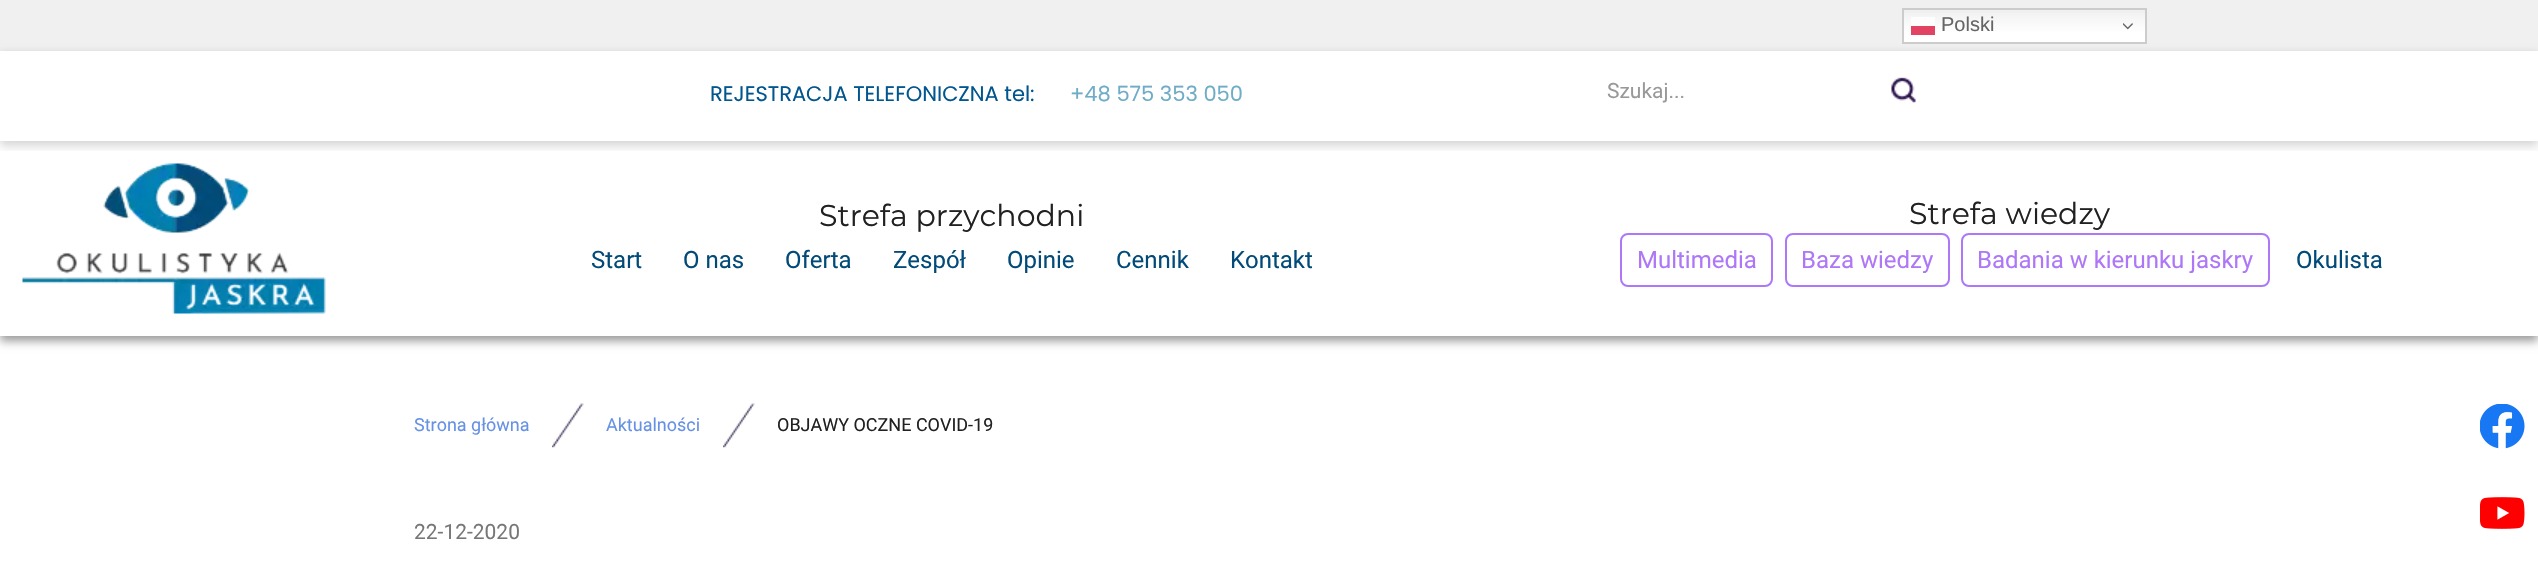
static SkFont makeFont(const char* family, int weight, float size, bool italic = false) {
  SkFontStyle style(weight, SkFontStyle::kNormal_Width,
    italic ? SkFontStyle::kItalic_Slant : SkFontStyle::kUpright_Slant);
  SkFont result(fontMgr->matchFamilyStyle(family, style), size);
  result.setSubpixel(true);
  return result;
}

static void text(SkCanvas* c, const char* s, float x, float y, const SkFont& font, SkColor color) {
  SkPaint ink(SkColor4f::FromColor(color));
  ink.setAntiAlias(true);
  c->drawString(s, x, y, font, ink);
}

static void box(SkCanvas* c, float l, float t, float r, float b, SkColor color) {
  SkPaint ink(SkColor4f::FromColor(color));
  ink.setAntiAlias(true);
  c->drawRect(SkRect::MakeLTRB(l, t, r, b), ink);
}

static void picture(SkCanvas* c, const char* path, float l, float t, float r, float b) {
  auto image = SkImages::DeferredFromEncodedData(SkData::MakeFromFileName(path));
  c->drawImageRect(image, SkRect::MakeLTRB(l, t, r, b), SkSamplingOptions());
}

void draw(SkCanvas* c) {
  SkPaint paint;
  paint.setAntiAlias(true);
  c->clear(0xffffffff);
  box(c, 0, 0, 2538, 51, 0xfff0f0f0);
  c->save();
  c->clipPath(SkPathBuilder(SkPathFillType::kEvenOdd).moveTo(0, 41).lineTo(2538, 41).lineTo(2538, 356).lineTo(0, 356).close().moveTo(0, 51).lineTo(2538, 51).lineTo(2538, 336).lineTo(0, 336).close().detach(), true);
  paint.setColor(0x66000000);
  paint.setMaskFilter(SkMaskFilter::MakeBlur(kNormal_SkBlurStyle, 4.5f));
  c->drawRect(SkRect::MakeLTRB(0, 56, 2538, 341), paint);
  paint.setMaskFilter(nullptr);
  c->restore();
  c->save();
  c->clipRect(SkRect::MakeLTRB(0, 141, 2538, 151));
  paint.setColor(0x29000000);
  paint.setMaskFilter(SkMaskFilter::MakeBlur(kNormal_SkBlurStyle, 4.5f));
  c->drawRect(SkRect::MakeLTRB(0, 56, 2538, 146), paint);
  paint.setMaskFilter(nullptr);
  c->restore();
  {
    const SkColor colors[] = {0xffefefef, 0xffffffff};
    const float stops[] = {0, 0.7f};
    const SkPoint ends[] = {{2024, 7.5f}, {2024, 44}};
    paint.setShader(SkGradientShader::MakeLinear(ends, colors, stops, 2, SkTileMode::kClamp));
    paint.setAlpha(255);
  }
  c->drawRect(SkRect::MakeLTRB(1904, 13, 2145, 42), paint);
  {
    const SkColor colors[] = {0xfffcfcfc, 0xffffffff};
    const float stops[] = {0, 0.7f};
    const SkPoint ends[] = {{2024, 7.5f}, {2024, 44}};
    paint.setShader(SkGradientShader::MakeLinear(ends, colors, stops, 2, SkTileMode::kClamp));
    paint.setAlpha(255);
  }
  c->drawRect(SkRect::MakeLTRB(1911, 17, 1935, 26), paint);
  paint.setStyle(SkPaint::kStroke_Style);
  paint.setStrokeWidth(2);
  paint.setShader(nullptr);
  paint.setColor(0xffcccccc);
  c->drawRect(SkRect::MakeLTRB(1903, 9, 2146, 43), paint);
  box(c, 1911, 26, 1935, 35, 0xffe34363);
  SkFont face1 = makeFont("Liberation Sans", 400, 20);
  text(c, "Polski", 1941, 31, face1, 0xff666666);
  picture(c, "img_01.png", 2123, 23, 2133, 30);
  SkFont face2 = makeFont("Poppins", 400, 21);
  text(c, "REJESTRACJA TELEFONICZNA tel:", 710, 101, face2, 0xff01568e);
  text(c, "+48 575 353 050", 1070, 101, face2, 0xff6facc7);
  SkFont face3 = makeFont("Roboto", 400, 21);
  text(c, "Szukaj...", 1607, 98, face3, 0xff999999);
  picture(c, "img_02.png", 1891, 77, 1916, 103);
  picture(c, "img_03.png", 22, 163, 326, 314);
  SkFont face4 = makeFont("Montserrat", 400, 30);
  text(c, "Strefa przychodni", 819, 226, face4, 0xff212121);
  SkFont face5 = makeFont("Roboto", 400, 24);
  text(c, "Start", 591, 268, face5, 0xff024b79);
  text(c, "O nas", 683, 268, face5, 0xff024b79);
  text(c, "Oferta", 785, 268, face5, 0xff024b79);
  text(c, "Zespół", 893, 268, face5, 0xff024b79);
  text(c, "Opinie", 1007, 268, face5, 0xff024b79);
  text(c, "Cennik", 1116, 268, face5, 0xff024b79);
  text(c, "Kontakt", 1230, 268, face5, 0xff024b79);
  text(c, "Strefa wiedzy", 1909, 224, face4, 0xff212121);
  paint.setColor(0xffae77f7);
  c->drawRoundRect(SkRect::MakeLTRB(1621, 234, 1772, 286), 7, 7, paint);
  text(c, "Multimedia", 1637, 268, face5, 0xffae77f7);
  c->drawRoundRect(SkRect::MakeLTRB(1786, 234, 1949, 286), 7, 7, paint);
  text(c, "Baza wiedzy", 1801, 268, face5, 0xffae77f7);
  c->drawRoundRect(SkRect::MakeLTRB(1962, 234, 2269, 286), 7, 7, paint);
  text(c, "Badania w kierunku jaskry", 1977, 268, face5, 0xffae77f7);
  text(c, "Okulista", 2296, 268, face5, 0xff024b79);
  SkFont face6 = makeFont("Roboto", 400, 18);
  text(c, "Strona główna", 414, 431, face6, 0xff6792e4);
  picture(c, "img_04.png", 552, 403, 584, 448);
  text(c, "Aktualności", 606, 431, face6, 0xff6792e4);
  picture(c, "img_05.png", 723, 403, 755, 448);
  text(c, "OBJAWY OCZNE COVID-19", 777, 431, face6, 0xff212121);
  text(c, "22-12-2020", 414, 539, face3, 0xff777777);
  picture(c, "img_06.png", 2480, 404, 2525, 449);
  picture(c, "img_07.png", 2480, 497, 2525, 529);
}
